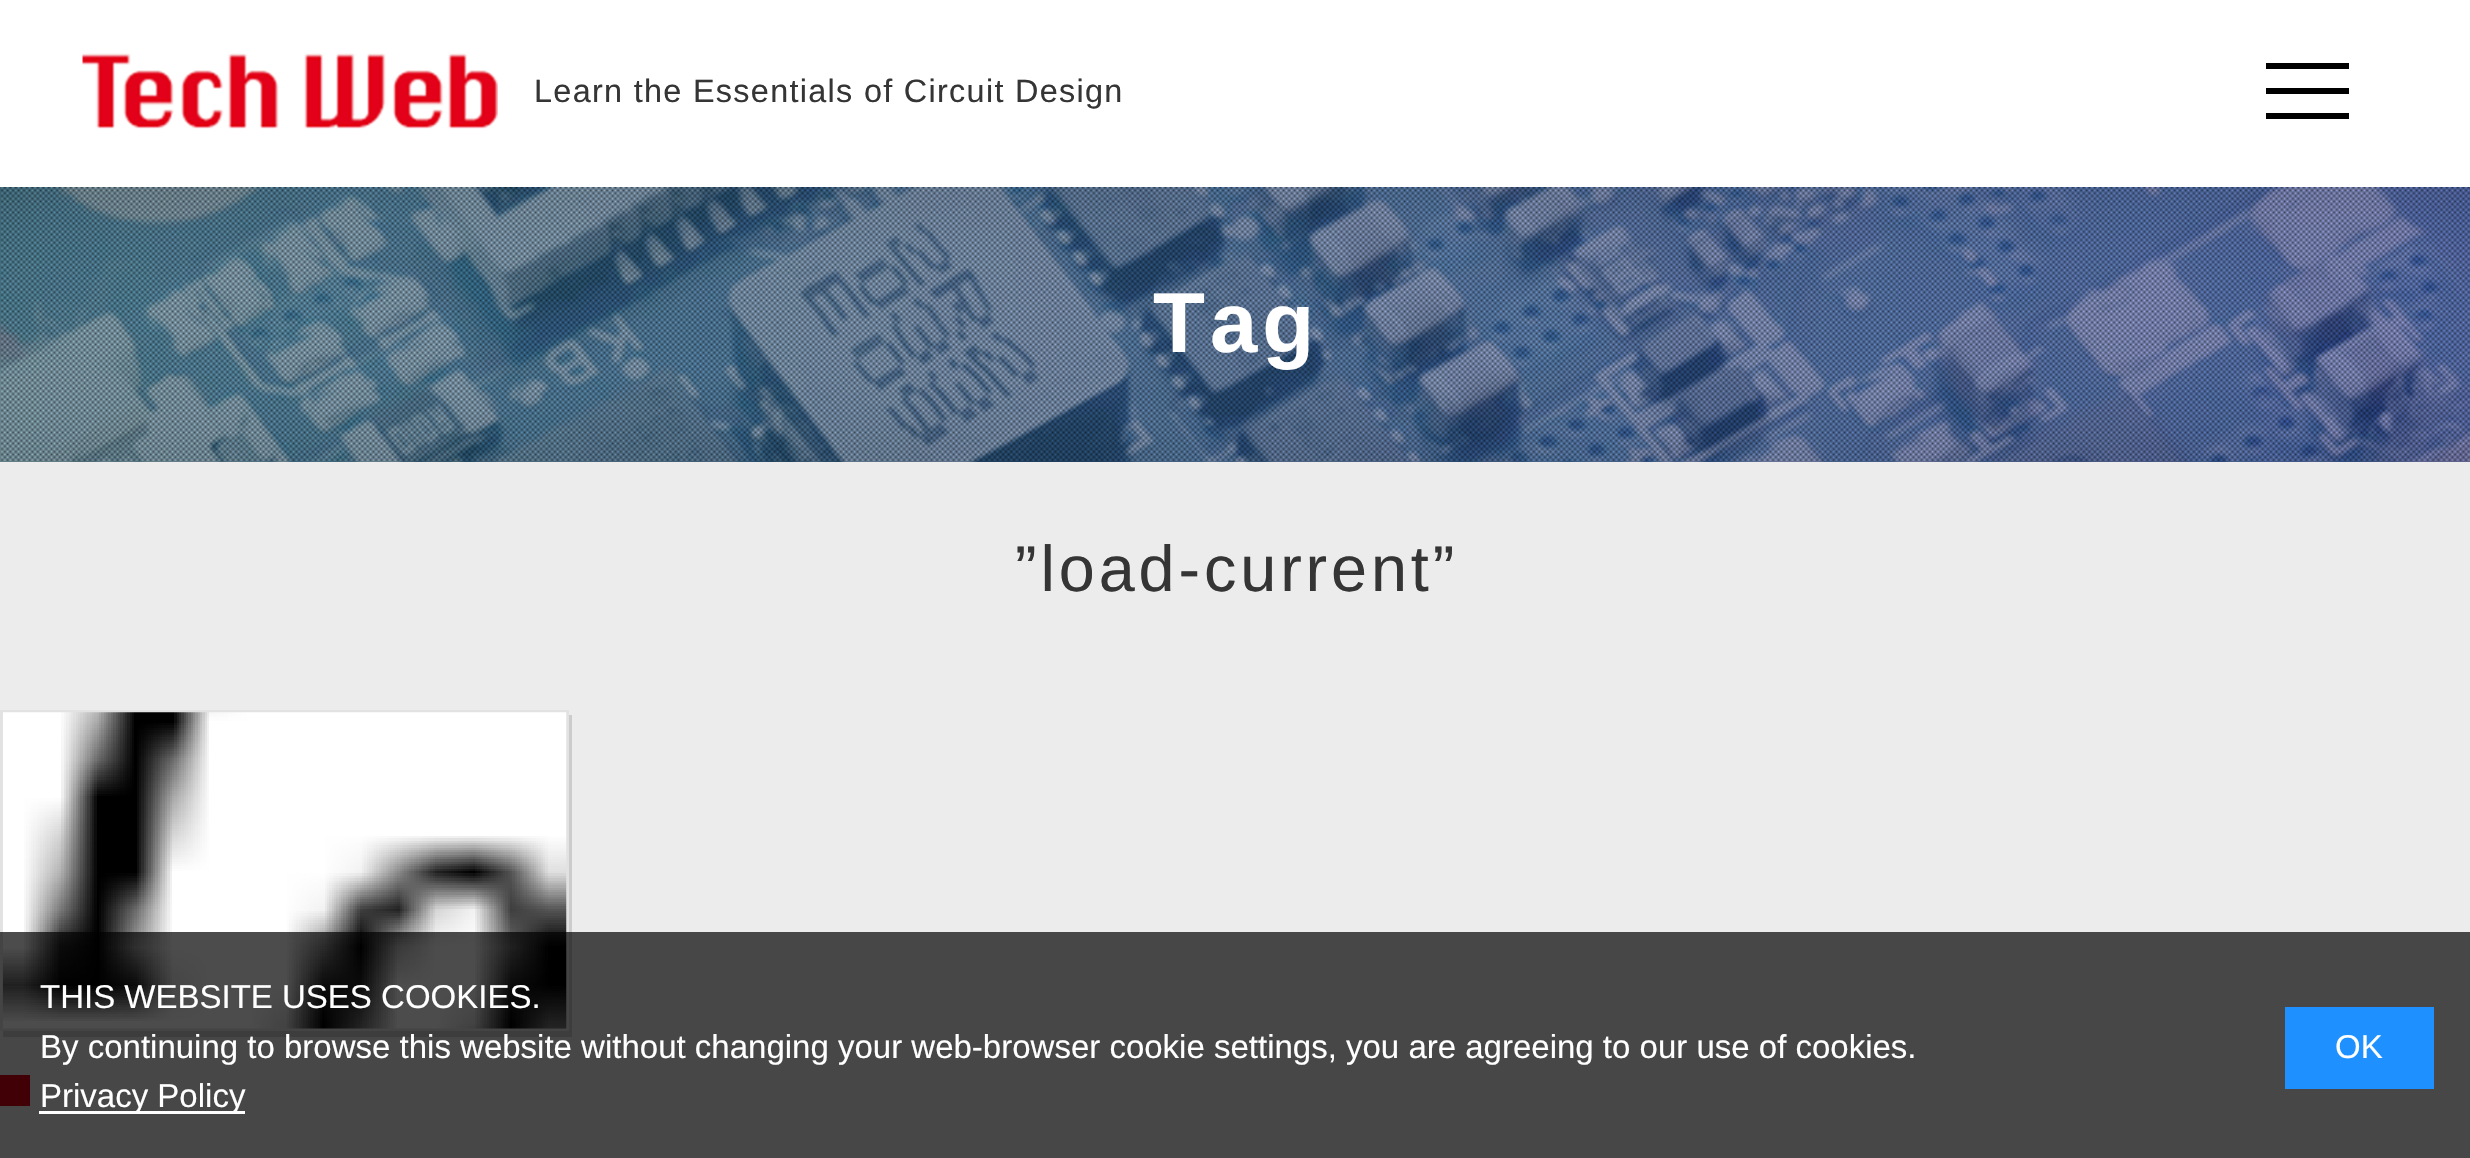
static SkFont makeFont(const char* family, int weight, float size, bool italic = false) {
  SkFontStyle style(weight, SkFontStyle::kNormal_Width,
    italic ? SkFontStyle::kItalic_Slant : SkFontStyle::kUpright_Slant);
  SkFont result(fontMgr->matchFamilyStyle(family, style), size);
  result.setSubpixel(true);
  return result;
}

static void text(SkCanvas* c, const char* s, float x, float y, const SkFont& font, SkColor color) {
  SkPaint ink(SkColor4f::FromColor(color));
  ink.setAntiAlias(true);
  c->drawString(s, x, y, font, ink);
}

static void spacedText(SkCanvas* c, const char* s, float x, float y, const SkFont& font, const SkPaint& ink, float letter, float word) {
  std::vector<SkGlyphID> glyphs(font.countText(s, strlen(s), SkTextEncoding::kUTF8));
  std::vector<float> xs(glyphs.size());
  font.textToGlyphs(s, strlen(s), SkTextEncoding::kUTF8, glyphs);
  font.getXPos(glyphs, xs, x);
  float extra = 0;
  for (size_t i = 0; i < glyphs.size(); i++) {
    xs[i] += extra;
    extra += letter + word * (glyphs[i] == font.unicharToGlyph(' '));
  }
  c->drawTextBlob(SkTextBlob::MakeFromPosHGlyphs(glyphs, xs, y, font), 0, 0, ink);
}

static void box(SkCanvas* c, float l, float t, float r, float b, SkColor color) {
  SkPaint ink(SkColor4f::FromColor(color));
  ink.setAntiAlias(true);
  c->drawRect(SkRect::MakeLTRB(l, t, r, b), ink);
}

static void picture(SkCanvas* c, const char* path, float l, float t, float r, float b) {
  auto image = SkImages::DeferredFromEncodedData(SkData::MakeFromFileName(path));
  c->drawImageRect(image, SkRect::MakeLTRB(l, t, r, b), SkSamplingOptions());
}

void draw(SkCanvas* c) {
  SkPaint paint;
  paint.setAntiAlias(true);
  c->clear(0xffffffff);
  picture(c, "img_01.png", 82, 53, 498, 129);
  SkFont face1 = makeFont("Liberation Sans", 400, 32.4f);
  paint.setColor(0xff353535);
  spacedText(c, "Learn the Essentials of Circuit Design", 534, 102, face1, paint, 1.3f, 0);
  box(c, 2266, 63, 2349, 69, 0xff000000);
  box(c, 2266, 88, 2349, 94, 0xff000000);
  box(c, 2266, 113, 2349, 119, 0xff000000);
  box(c, 0, 462, 2470, 1158, 0xffececec);
  picture(c, "img_02.png", 0, 187, 2470, 462);
  SkFont face2 = makeFont("Liberation Sans", 700, 85);
  paint.setColor(0xffffffff);
  spacedText(c, "Tag", 1153, 352, face2, paint, 5, 0);
  SkFont face3 = makeFont("Liberation Sans", 400, 64.75f);
  paint.setColor(0xff353535);
  spacedText(c, "”load-current”", 1015, 591, face3, paint, 3.9f, 0);
  paint.setColor(0xffcccccc);
  c->drawPath(SkPathBuilder().moveTo(3, 1031).lineTo(3, 1037).lineTo(572, 1037).lineTo(572, 715).lineTo(569, 715).lineTo(569, 1031).close().detach(), paint);
  paint.setStyle(SkPaint::kStroke_Style);
  paint.setStrokeWidth(3);
  paint.setColor(0xffe2e2e2);
  c->drawRect(SkRect::MakeLTRB(1.5f, 711.5f, 567.5f, 1029.5f), paint);
  picture(c, "img_03.png", 2, 712, 567, 1029);
  box(c, 0, 1075, 30, 1106, 0xffd90013);
  box(c, 0, 932, 2470, 1158, 0xb3000000);
  SkFont face4 = makeFont("Liberation Sans", 400, 33);
  text(c, "THIS WEBSITE USES COOKIES.", 40, 1008, face4, 0xffffffff);
  text(c, "By continuing to browse this website without changing your web-browser cookie settings, you are agreeing to our use of cookies.", 40, 1058, face4, 0xffffffff);
  box(c, 39, 1111, 245, 1114, 0xffffffff);
  text(c, "Privacy Policy", 40, 1107, face4, 0xffffffff);
  box(c, 2285, 1007, 2434, 1089, 0xff1e90ff);
  text(c, "OK", 2335, 1058, face4, 0xffffffff);
}
